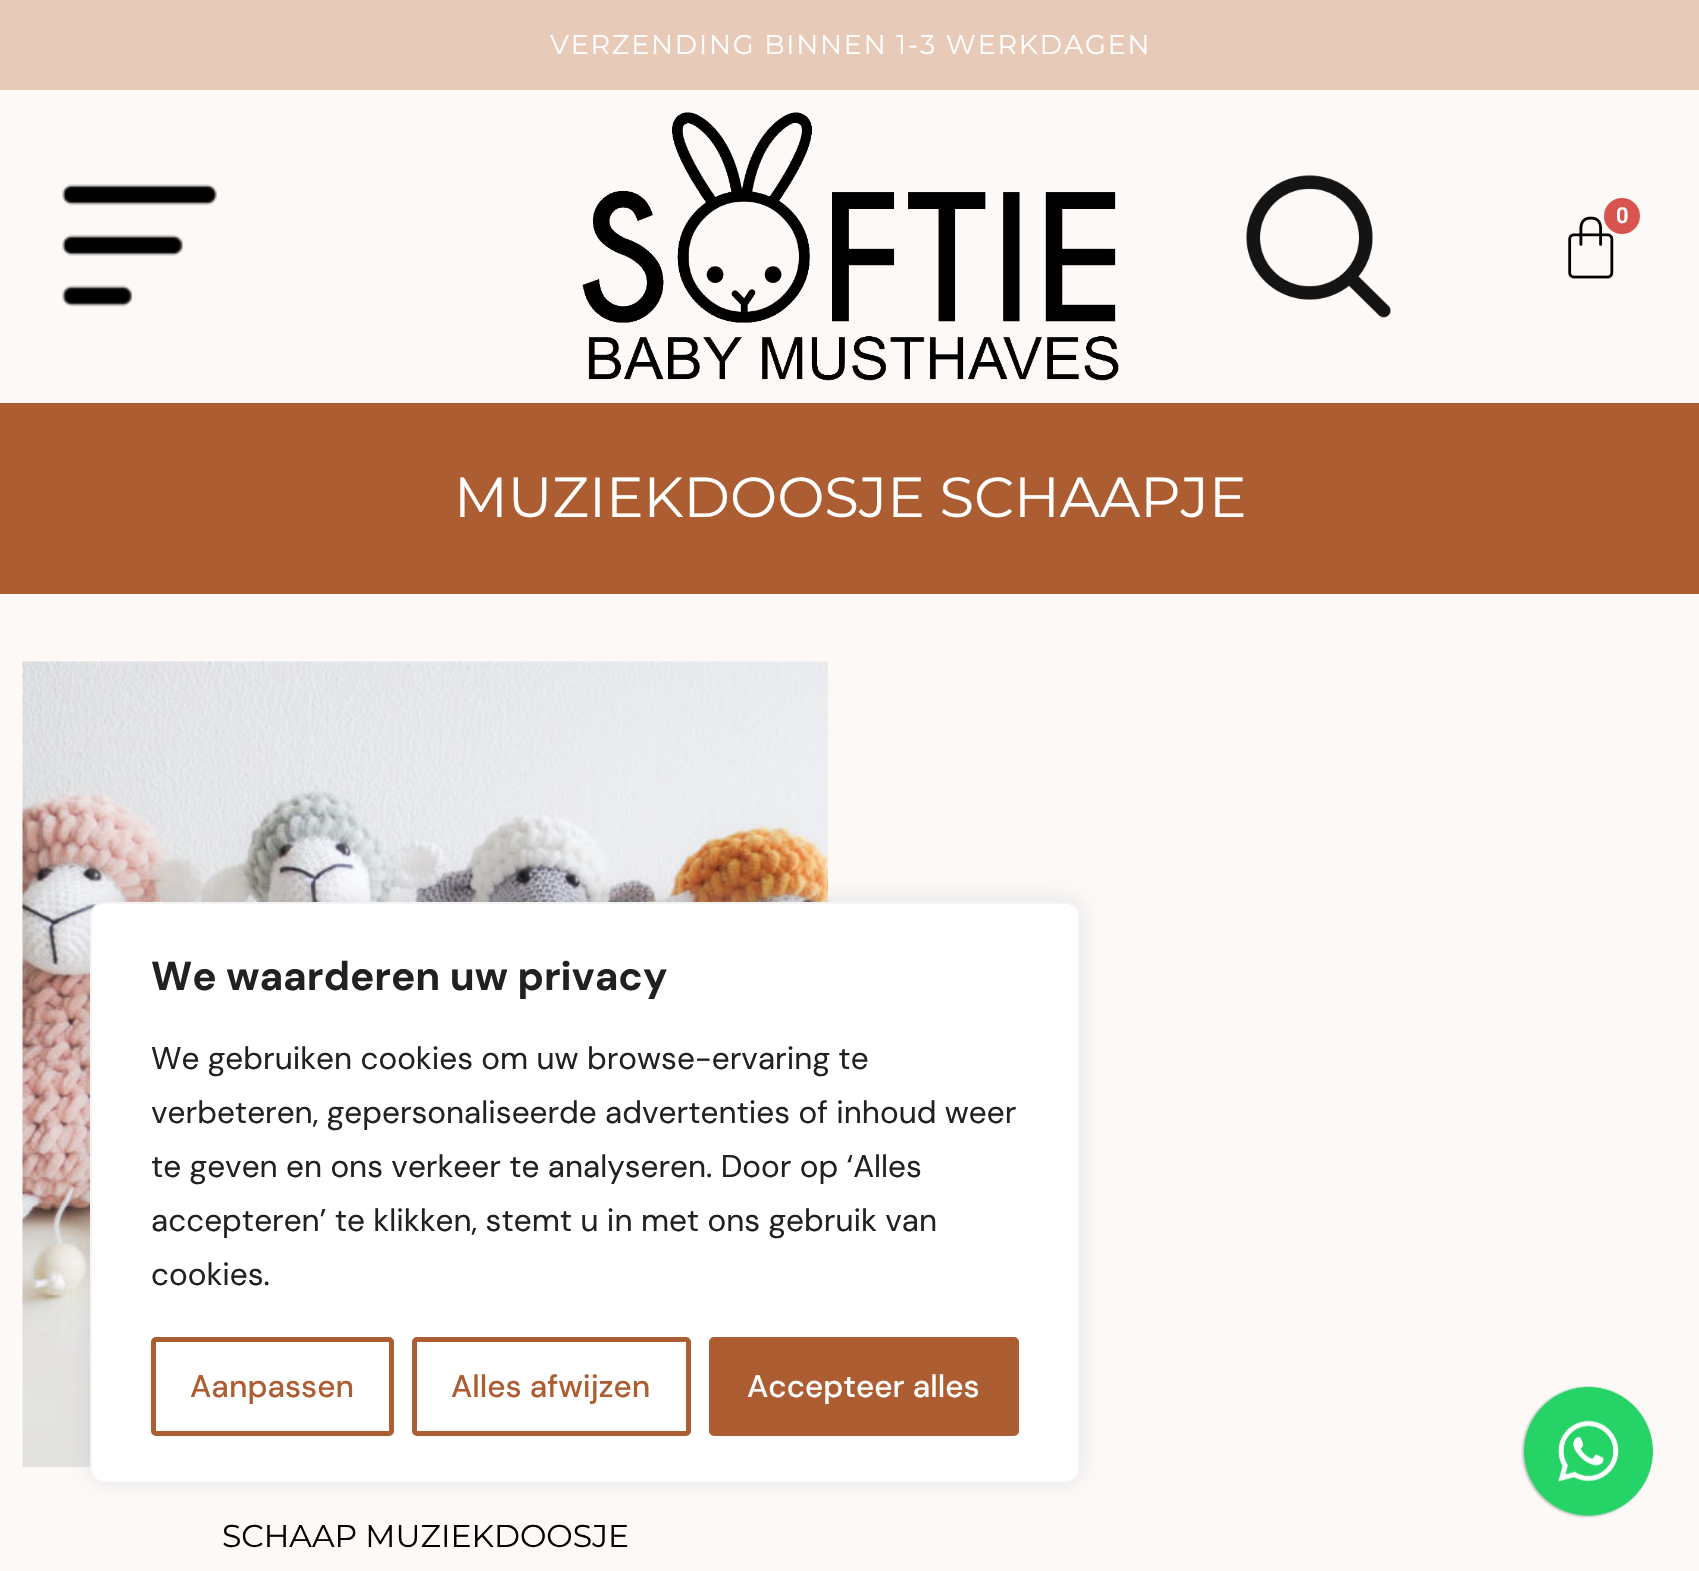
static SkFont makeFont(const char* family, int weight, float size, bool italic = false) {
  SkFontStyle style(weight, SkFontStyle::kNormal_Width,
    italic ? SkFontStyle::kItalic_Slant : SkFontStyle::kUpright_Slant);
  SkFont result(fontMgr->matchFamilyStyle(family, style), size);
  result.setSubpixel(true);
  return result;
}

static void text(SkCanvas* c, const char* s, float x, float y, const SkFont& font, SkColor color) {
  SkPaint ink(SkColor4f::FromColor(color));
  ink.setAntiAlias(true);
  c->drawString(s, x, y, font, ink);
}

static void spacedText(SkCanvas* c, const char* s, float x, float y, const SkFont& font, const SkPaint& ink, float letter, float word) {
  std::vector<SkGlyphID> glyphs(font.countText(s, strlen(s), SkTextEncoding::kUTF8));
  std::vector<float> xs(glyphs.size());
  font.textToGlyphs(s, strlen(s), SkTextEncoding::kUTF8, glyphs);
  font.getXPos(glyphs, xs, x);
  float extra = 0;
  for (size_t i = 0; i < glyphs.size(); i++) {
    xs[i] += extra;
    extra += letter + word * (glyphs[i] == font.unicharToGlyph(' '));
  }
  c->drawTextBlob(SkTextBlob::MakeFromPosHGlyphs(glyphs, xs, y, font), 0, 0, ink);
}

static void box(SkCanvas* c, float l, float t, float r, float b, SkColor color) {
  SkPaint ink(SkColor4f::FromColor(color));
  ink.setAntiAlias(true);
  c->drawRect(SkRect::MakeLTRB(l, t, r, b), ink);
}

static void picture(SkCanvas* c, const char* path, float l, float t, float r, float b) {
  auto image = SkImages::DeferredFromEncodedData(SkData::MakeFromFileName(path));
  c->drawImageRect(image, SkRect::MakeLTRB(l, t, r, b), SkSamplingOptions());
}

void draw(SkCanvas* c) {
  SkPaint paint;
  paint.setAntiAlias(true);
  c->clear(0xfffcf9f7);
  box(c, 0, 0, 1699, 90, 0xffe7cab7);
  SkFont face1 = makeFont("Montserrat", 400, 27);
  paint.setColor(0xffffffff);
  spacedText(c, "VERZENDING BINNEN 1-3 WERKDAGEN", 550, 54, face1, paint, 1.8f, 0);
  picture(c, "img_01.png", 62, 184, 217, 307);
  picture(c, "img_02.png", 582, 112, 1119, 381);
  picture(c, "img_03.png", 1246, 175, 1391, 318);
  picture(c, "img_04.png", 1568, 216, 1614, 279);
  paint.setColor(0xffd9534f);
  c->drawCircle(1622, 216, 18, paint);
  SkFont face2 = makeFont("Roboto", 600, 22);
  text(c, "0", 1616, 223, face2, 0xffffffff);
  box(c, 0, 403, 1699, 594, 0xffac5d32);
  SkFont face3 = makeFont("Montserrat", 400, 56.25f);
  text(c, "MUZIEKDOOSJE SCHAAPJE", 454, 517, face3, 0xffffffff);
  picture(c, "img_05.png", 22, 661, 828, 1467);
  SkFont face4 = makeFont("Montserrat", 400, 31.5f);
  text(c, "SCHAAP MUZIEKDOOSJE", 222, 1547, face4, 0xff000000);
  paint.setColor(0x4dacabab);
  paint.setMaskFilter(SkMaskFilter::MakeBlur(kNormal_SkBlurStyle, 11));
  c->drawRoundRect(SkRect::MakeLTRB(90, 900, 1080, 1481), 14, 14, paint);
  paint.setMaskFilter(nullptr);
  paint.setColor(0xffffffff);
  c->drawRoundRect(SkRect::MakeLTRB(91, 903, 1079, 1482), 13, 13, paint);
  paint.setStyle(SkPaint::kStroke_Style);
  paint.setStrokeWidth(2);
  paint.setColor(0xfff4f4f4);
  c->drawRoundRect(SkRect::MakeLTRB(91, 903, 1079, 1482), 13, 13, paint);
  SkFont face5 = makeFont("DM Sans", 700, 40.5f);
  text(c, "We waarderen uw privacy", 151, 990, face5, 0xff212121);
  SkFont face6 = makeFont("DM Sans", 400, 31.5f);
  text(c, "We gebruiken cookies om uw browse-ervaring te", 151, 1069, face6, 0xff212121);
  text(c, "verbeteren, gepersonaliseerde advertenties of inhoud weer", 151, 1123, face6, 0xff212121);
  text(c, "te geven en ons verkeer te analyseren. Door op ‘Alles", 151, 1177, face6, 0xff212121);
  text(c, "accepteren’ te klikken, stemt u in met ons gebruik van", 151, 1231, face6, 0xff212121);
  text(c, "cookies.", 151, 1285, face6, 0xff212121);
  paint.setStrokeWidth(5);
  paint.setColor(0xffac5d32);
  c->drawRoundRect(SkRect::MakeLTRB(153.5f, 1339.5f, 391.5f, 1433.5f), 2.5f, 2.5f, paint);
  SkFont face7 = makeFont("DM Sans", 500, 31.5f);
  text(c, "Aanpassen", 190, 1397, face7, 0xffac5d32);
  c->drawRoundRect(SkRect::MakeLTRB(414.5f, 1339.5f, 688.5f, 1433.5f), 2.5f, 2.5f, paint);
  text(c, "Alles afwijzen", 451, 1397, face7, 0xffac5d32);
  paint.setStyle(SkPaint::kFill_Style);
  c->drawRoundRect(SkRect::MakeLTRB(711.5f, 1339.5f, 1016.5f, 1433.5f), 2.5f, 2.5f, paint);
  paint.setStyle(SkPaint::kStroke_Style);
  c->drawRoundRect(SkRect::MakeLTRB(711.5f, 1339.5f, 1016.5f, 1433.5f), 2.5f, 2.5f, paint);
  text(c, "Accepteer alles", 747, 1397, face7, 0xffffffff);
  picture(c, "img_06.png", 1521, 1386, 1653, 1518);
}
